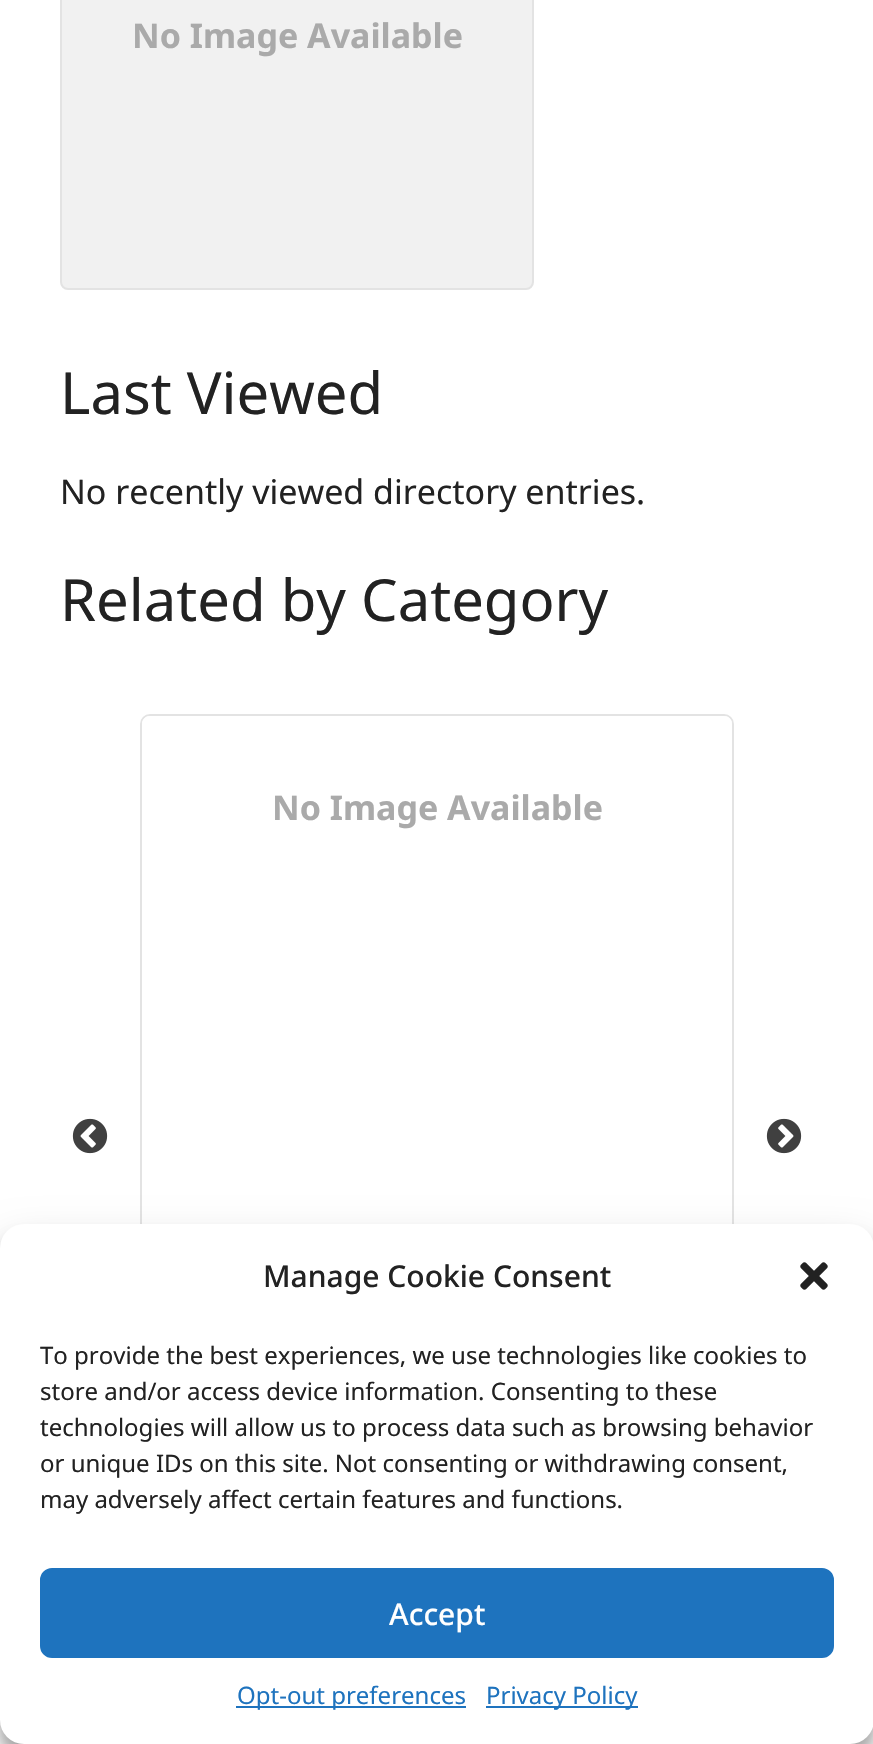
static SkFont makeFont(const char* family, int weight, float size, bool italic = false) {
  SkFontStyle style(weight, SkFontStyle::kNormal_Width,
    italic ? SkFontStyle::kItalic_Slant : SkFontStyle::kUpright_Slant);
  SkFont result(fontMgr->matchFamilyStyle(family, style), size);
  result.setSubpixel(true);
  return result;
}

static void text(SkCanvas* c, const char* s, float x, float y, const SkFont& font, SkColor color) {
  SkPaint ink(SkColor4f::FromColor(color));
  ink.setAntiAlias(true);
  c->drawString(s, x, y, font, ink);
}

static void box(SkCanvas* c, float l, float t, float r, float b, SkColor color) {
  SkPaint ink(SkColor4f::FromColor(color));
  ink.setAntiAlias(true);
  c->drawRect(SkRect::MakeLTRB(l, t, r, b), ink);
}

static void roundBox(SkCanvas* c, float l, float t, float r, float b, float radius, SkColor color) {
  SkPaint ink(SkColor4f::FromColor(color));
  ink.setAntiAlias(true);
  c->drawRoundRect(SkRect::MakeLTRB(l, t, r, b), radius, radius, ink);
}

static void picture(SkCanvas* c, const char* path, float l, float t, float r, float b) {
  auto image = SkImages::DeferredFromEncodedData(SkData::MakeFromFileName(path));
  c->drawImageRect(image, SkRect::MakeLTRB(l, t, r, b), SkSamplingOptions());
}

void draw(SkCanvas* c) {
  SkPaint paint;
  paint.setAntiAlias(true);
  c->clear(0xffffffff);
  paint.setColor(0xfff1f1f1);
  c->drawRoundRect(SkRect::MakeLTRB(61, -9, 533, 289), 7, 7, paint);
  paint.setStyle(SkPaint::kStroke_Style);
  paint.setStrokeWidth(2);
  paint.setColor(0xffe3e3e3);
  c->drawRoundRect(SkRect::MakeLTRB(61, -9, 533, 289), 7, 7, paint);
  SkFont face1 = makeFont("Noto Sans", 700, 34);
  text(c, "No Image Available", 132, 48, face1, 0xffaaaaaa);
  SkFont face2 = makeFont("Noto Sans", 400, 58);
  text(c, "Last Viewed", 60, 414, face2, 0xff222222);
  SkFont face3 = makeFont("Noto Sans", 400, 34);
  text(c, "No recently viewed directory entries.", 60, 504, face3, 0xff222222);
  text(c, "Related by Category", 60, 621, face2, 0xff222222);
  c->drawRoundRect(SkRect::MakeLTRB(141, 715, 733, 1505), 9, 9, paint);
  paint.setStyle(SkPaint::kFill_Style);
  paint.setColor(0xffffffff);
  c->drawPath(SkPathBuilder().moveTo(150, 716).lineTo(724, 716).cubicTo(728.5f, 716, 732, 719.5f, 732, 724).lineTo(732, 1228).lineTo(142, 1228).lineTo(142, 724).cubicTo(142, 719.5f, 145.5f, 716, 150, 716).close().detach(), paint);
  text(c, "No Image Available", 272, 820, face1, 0xffaaaaaa);
  picture(c, "img_01.png", 72, 1118, 108, 1154);
  picture(c, "img_02.png", 766, 1118, 802, 1154);
  paint.setColor(0x3b000000);
  paint.setMaskFilter(SkMaskFilter::MakeBlur(kNormal_SkBlurStyle, 6));
  c->drawRoundRect(SkRect::MakeLTRB(0, 1236, 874, 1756), 24, 24, paint);
  paint.setMaskFilter(nullptr);
  paint.setColor(0x30000000);
  paint.setMaskFilter(SkMaskFilter::MakeBlur(kNormal_SkBlurStyle, 20));
  c->drawRoundRect(SkRect::MakeLTRB(0, 1244, 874, 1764), 24, 24, paint);
  paint.setMaskFilter(nullptr);
  roundBox(c, 0, 1224, 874, 1744, 24, 0xffffffff);
  SkFont face4 = makeFont("Noto Sans", 500, 30);
  text(c, "Manage Cookie Consent", 263, 1287, face4, 0xff222222);
  picture(c, "img_03.png", 800, 1262, 828, 1290);
  SkFont face5 = makeFont("Noto Sans", 400, 24);
  text(c, "To provide the best experiences, we use technologies like cookies to", 40, 1364, face5, 0xff222222);
  text(c, "store and/or access device information. Consenting to these", 40, 1400, face5, 0xff222222);
  text(c, "technologies will allow us to process data such as browsing behavior", 40, 1436, face5, 0xff222222);
  text(c, "or unique IDs on this site. Not consenting or withdrawing consent,", 40, 1472, face5, 0xff222222);
  text(c, "may adversely affect certain features and functions.", 40, 1508, face5, 0xff222222);
  paint.setColor(0xff1e73be);
  c->drawRoundRect(SkRect::MakeLTRB(41, 1569, 833, 1657), 11, 11, paint);
  paint.setStyle(SkPaint::kStroke_Style);
  c->drawRoundRect(SkRect::MakeLTRB(41, 1569, 833, 1657), 11, 11, paint);
  text(c, "Accept", 389, 1625, face4, 0xffffffff);
  box(c, 236, 1706, 466, 1708, 0xff1e73be);
  text(c, "Opt-out preferences", 237, 1704, face5, 0xff1e73be);
  box(c, 486, 1706, 638, 1708, 0xff1e73be);
  text(c, "Privacy Policy", 486, 1704, face5, 0xff1e73be);
}
